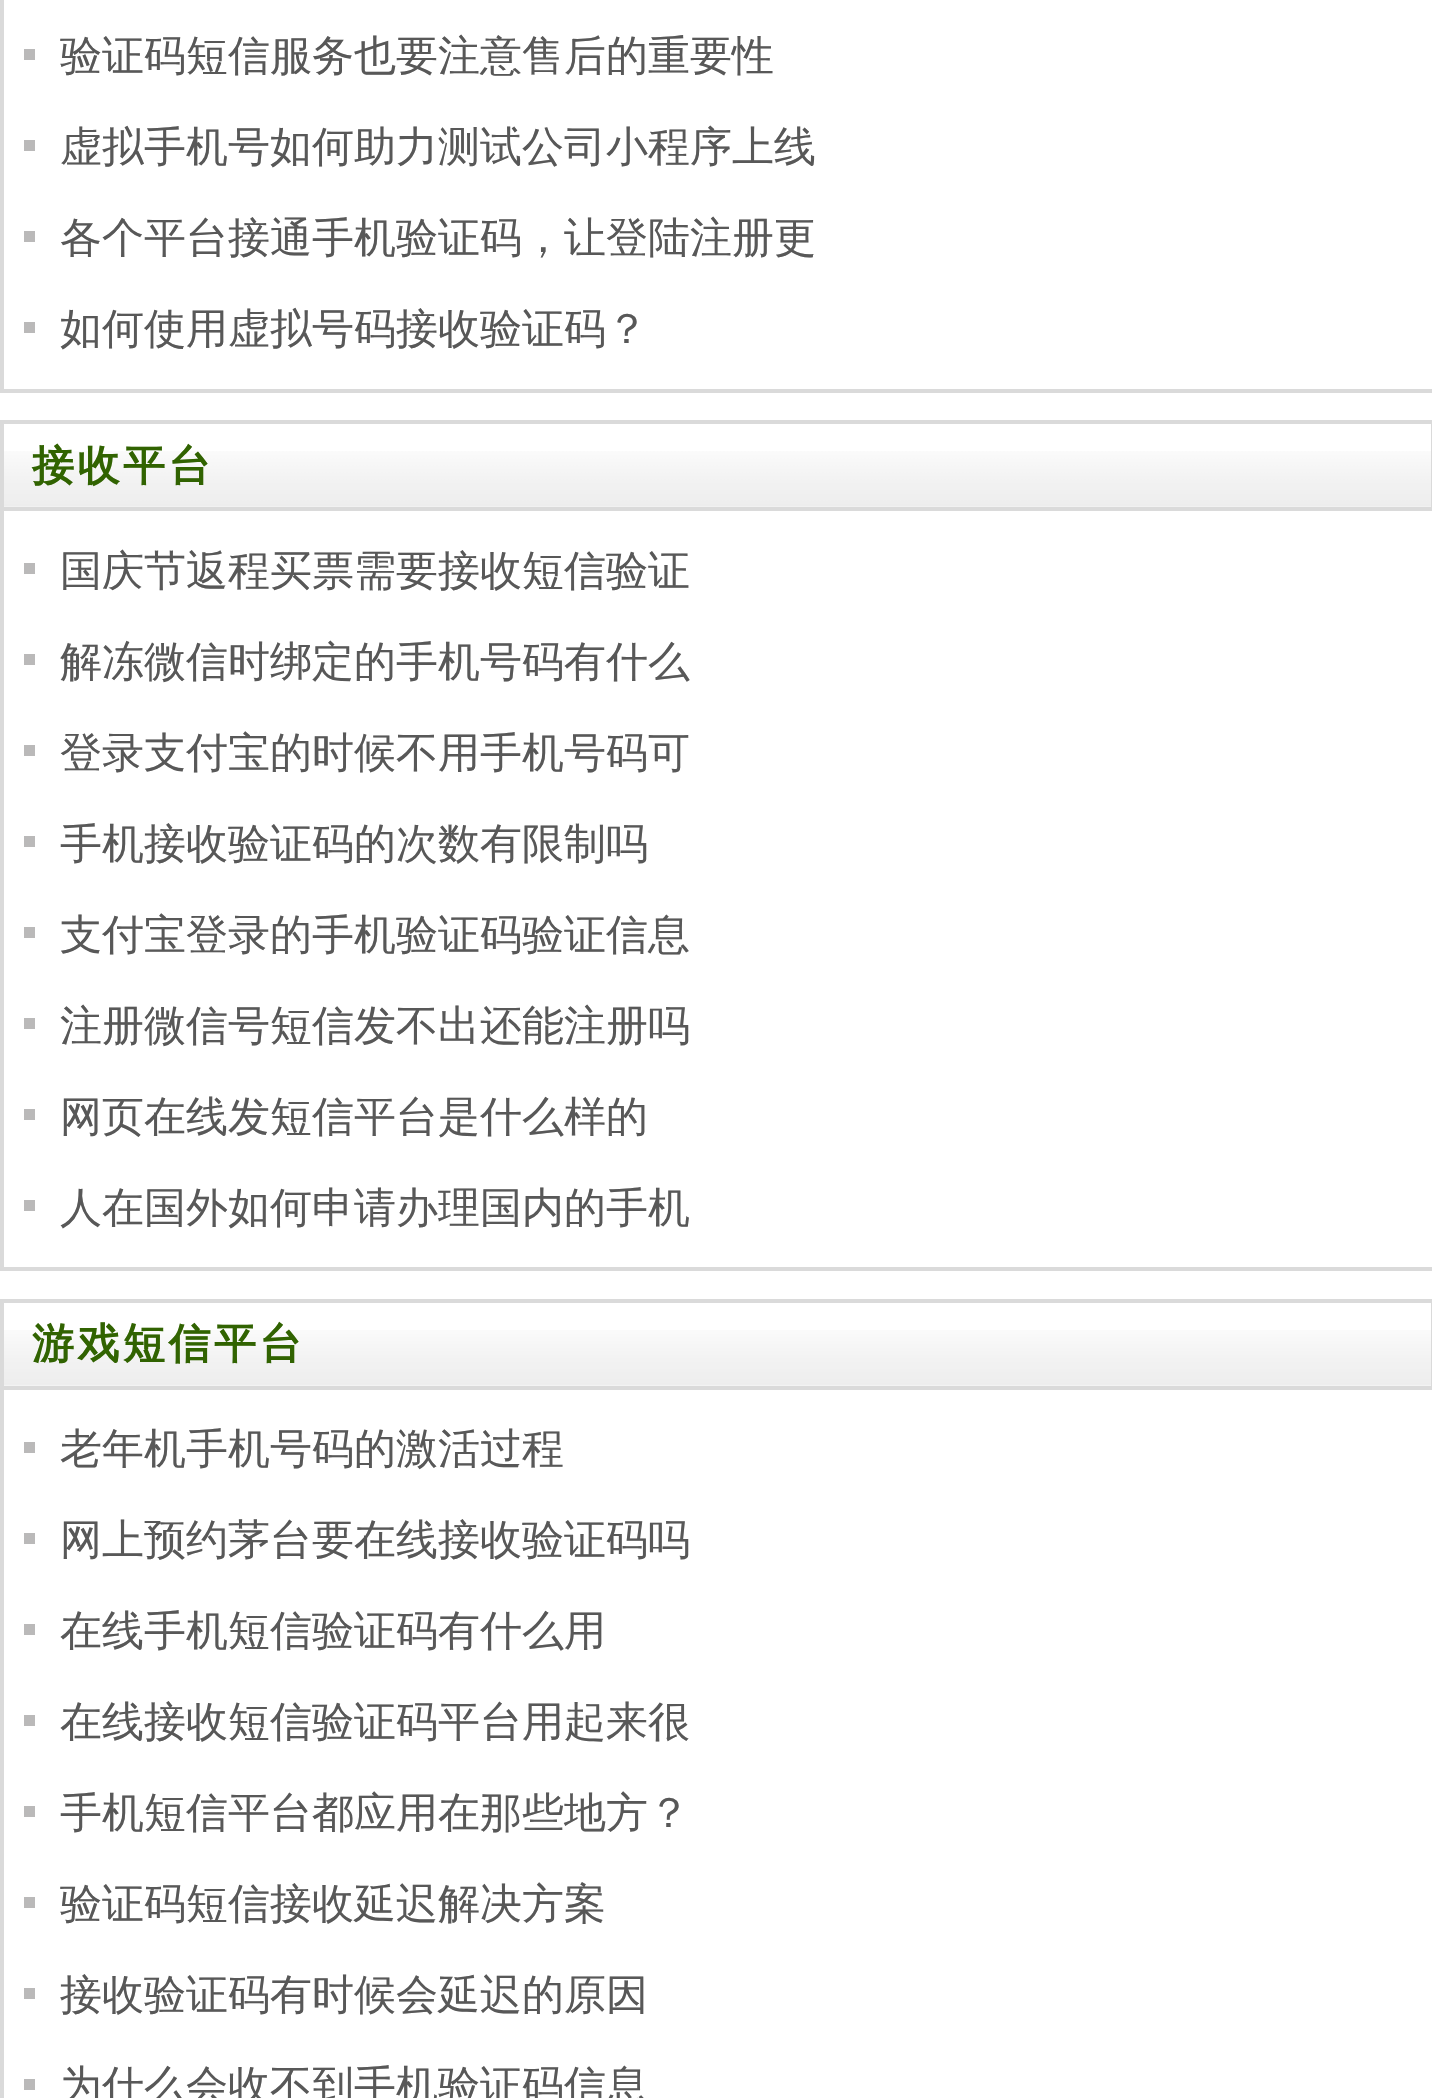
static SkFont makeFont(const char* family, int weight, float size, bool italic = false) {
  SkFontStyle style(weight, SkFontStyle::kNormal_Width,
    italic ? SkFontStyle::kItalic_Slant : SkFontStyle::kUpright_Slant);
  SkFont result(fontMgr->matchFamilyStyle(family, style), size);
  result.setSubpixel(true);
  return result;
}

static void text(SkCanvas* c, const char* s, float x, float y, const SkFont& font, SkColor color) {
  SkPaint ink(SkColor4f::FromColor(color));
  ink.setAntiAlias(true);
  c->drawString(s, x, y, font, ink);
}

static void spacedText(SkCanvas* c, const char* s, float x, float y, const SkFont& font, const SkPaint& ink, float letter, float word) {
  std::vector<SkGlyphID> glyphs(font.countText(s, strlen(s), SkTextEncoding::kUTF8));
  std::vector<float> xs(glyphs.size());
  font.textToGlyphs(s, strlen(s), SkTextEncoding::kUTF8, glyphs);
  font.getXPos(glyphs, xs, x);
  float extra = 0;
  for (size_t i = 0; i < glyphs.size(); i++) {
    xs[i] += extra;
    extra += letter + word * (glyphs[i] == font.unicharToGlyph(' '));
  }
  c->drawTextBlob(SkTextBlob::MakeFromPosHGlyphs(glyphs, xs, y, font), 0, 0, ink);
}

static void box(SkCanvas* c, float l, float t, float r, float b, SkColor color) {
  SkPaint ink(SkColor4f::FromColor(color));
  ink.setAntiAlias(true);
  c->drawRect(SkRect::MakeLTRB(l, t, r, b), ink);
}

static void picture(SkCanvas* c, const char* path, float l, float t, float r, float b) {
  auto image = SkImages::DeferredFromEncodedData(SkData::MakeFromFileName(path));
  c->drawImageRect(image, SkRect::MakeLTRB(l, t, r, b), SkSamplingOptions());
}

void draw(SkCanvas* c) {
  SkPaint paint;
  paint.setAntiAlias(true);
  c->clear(0xffffffff);
  box(c, 0, 389, 1432, 393, 0xffdadada);
  box(c, 0, 0, 4, 389, 0xffdadada);
  box(c, 24, 49, 35, 60, 0xffbab9b9);
  SkFont face1 = makeFont("WenQuanYi Zen Hei", 500, 42);
  text(c, "验证码短信服务也要注意售后的重要性", 60, 70, face1, 0xff585858);
  box(c, 24, 140, 35, 151, 0xffbab9b9);
  text(c, "虚拟手机号如何助力测试公司小程序上线", 60, 161, face1, 0xff585858);
  box(c, 24, 231, 35, 242, 0xffbab9b9);
  text(c, "各个平台接通手机验证码，让登陆注册更", 60, 252, face1, 0xff585858);
  box(c, 24, 322, 35, 333, 0xffbab9b9);
  text(c, "如何使用虚拟号码接收验证码？", 60, 343, face1, 0xff585858);
  box(c, 0, 1267, 1432, 1271, 0xffdadada);
  picture(c, "img_01.png", 4, 451, 1431, 507);
  paint.setStyle(SkPaint::kStroke_Style);
  paint.setStrokeWidth(4);
  paint.setColor(0xffdadada);
  c->drawRect(SkRect::MakeLTRB(2, 422, 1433, 509), paint);
  SkFont face2 = makeFont("WenQuanYi Zen Hei", 700, 42);
  paint.setStyle(SkPaint::kFill_Style);
  paint.setColor(0xff316301);
  spacedText(c, "接收平台", 32, 480, face2, paint, 3.5f, 0);
  box(c, 0, 511, 4, 1267, 0xffdadada);
  box(c, 24, 563, 35, 574, 0xffbab9b9);
  text(c, "国庆节返程买票需要接收短信验证", 60, 585, face1, 0xff585858);
  box(c, 24, 654, 35, 665, 0xffbab9b9);
  text(c, "解冻微信时绑定的手机号码有什么", 60, 676, face1, 0xff585858);
  box(c, 24, 745, 35, 756, 0xffbab9b9);
  text(c, "登录支付宝的时候不用手机号码可", 60, 767, face1, 0xff585858);
  box(c, 24, 836, 35, 847, 0xffbab9b9);
  text(c, "手机接收验证码的次数有限制吗", 60, 858, face1, 0xff585858);
  box(c, 24, 927, 35, 938, 0xffbab9b9);
  text(c, "支付宝登录的手机验证码验证信息", 60, 949, face1, 0xff585858);
  box(c, 24, 1018, 35, 1029, 0xffbab9b9);
  text(c, "注册微信号短信发不出还能注册吗", 60, 1040, face1, 0xff585858);
  box(c, 24, 1109, 35, 1120, 0xffbab9b9);
  text(c, "网页在线发短信平台是什么样的", 60, 1131, face1, 0xff585858);
  box(c, 24, 1200, 35, 1211, 0xffbab9b9);
  text(c, "人在国外如何申请办理国内的手机", 60, 1222, face1, 0xff585858);
  picture(c, "img_02.png", 4, 1330, 1431, 1386);
  paint.setStyle(SkPaint::kStroke_Style);
  paint.setColor(0xffdadada);
  c->drawRect(SkRect::MakeLTRB(2, 1301, 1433, 1388), paint);
  paint.setStyle(SkPaint::kFill_Style);
  paint.setColor(0xff316301);
  spacedText(c, "游戏短信平台", 32, 1358, face2, paint, 3.5f, 0);
  box(c, 0, 1390, 4, 2098, 0xffdadada);
  box(c, 24, 1442, 35, 1453, 0xffbab9b9);
  text(c, "老年机手机号码的激活过程", 60, 1463, face1, 0xff585858);
  box(c, 24, 1533, 35, 1544, 0xffbab9b9);
  text(c, "网上预约茅台要在线接收验证码吗", 60, 1554, face1, 0xff585858);
  box(c, 24, 1624, 35, 1635, 0xffbab9b9);
  text(c, "在线手机短信验证码有什么用", 60, 1645, face1, 0xff585858);
  box(c, 24, 1715, 35, 1726, 0xffbab9b9);
  text(c, "在线接收短信验证码平台用起来很", 60, 1736, face1, 0xff585858);
  box(c, 24, 1806, 35, 1817, 0xffbab9b9);
  text(c, "手机短信平台都应用在那些地方？", 60, 1827, face1, 0xff585858);
  box(c, 24, 1897, 35, 1908, 0xffbab9b9);
  text(c, "验证码短信接收延迟解决方案", 60, 1918, face1, 0xff585858);
  box(c, 24, 1988, 35, 1999, 0xffbab9b9);
  text(c, "接收验证码有时候会延迟的原因", 60, 2009, face1, 0xff585858);
  box(c, 24, 2079, 35, 2090, 0xffbab9b9);
  text(c, "为什么会收不到手机验证码信息", 60, 2100, face1, 0xff585858);
}
